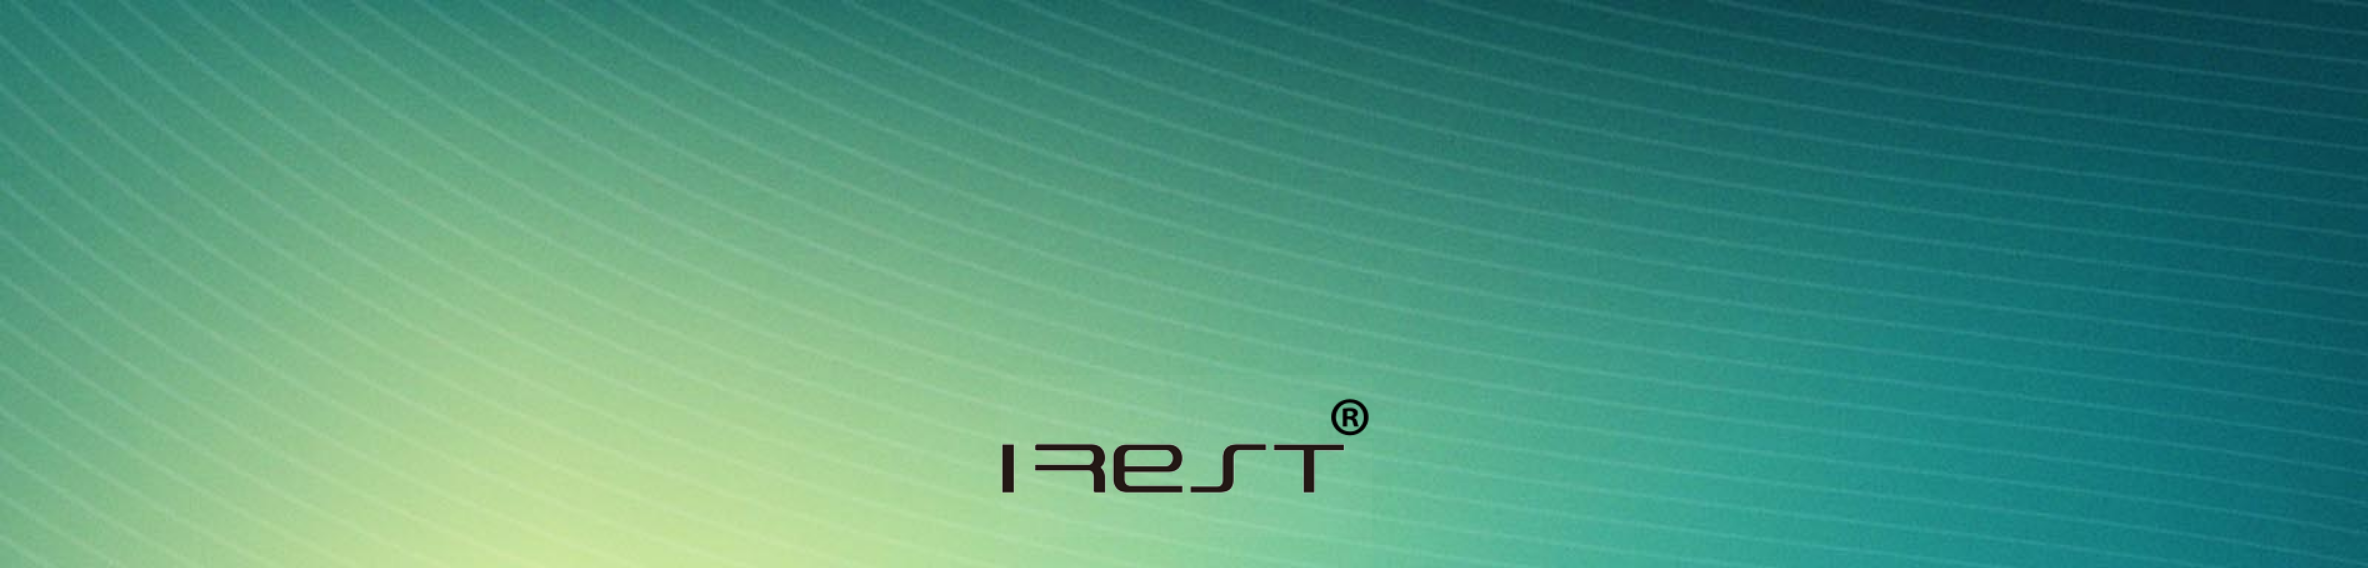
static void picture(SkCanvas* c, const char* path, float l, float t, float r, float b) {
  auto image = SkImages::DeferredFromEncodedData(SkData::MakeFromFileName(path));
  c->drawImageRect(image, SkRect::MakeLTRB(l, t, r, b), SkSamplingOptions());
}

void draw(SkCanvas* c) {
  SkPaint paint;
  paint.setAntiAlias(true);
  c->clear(0xffffffff);
  picture(c, "img_01.png", 0, 0, 2368, 568);
  picture(c, "img_02.png", 1001, 375, 1372, 537);
}
